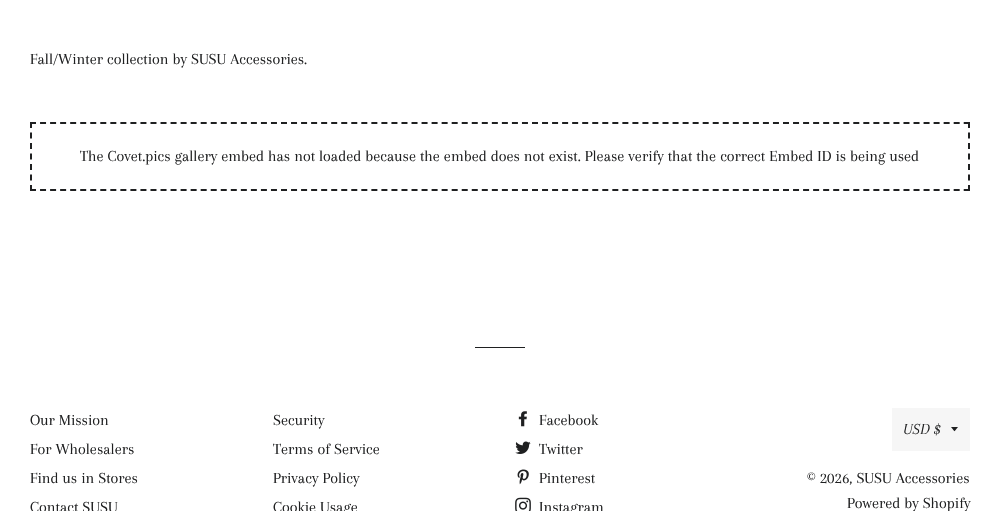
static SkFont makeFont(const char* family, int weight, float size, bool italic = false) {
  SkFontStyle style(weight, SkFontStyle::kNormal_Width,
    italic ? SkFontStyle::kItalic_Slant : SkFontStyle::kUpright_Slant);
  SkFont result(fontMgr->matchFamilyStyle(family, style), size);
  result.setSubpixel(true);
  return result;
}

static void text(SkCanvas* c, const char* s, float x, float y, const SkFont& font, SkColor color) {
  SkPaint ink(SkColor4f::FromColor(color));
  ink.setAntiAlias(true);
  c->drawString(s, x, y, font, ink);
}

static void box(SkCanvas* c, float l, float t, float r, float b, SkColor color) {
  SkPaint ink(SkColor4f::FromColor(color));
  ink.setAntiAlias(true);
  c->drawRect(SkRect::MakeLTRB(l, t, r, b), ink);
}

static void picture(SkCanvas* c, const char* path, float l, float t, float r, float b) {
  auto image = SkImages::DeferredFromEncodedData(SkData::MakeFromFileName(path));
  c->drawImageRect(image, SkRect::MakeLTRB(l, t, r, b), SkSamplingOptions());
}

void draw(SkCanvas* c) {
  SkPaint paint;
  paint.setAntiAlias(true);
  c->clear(0xffffffff);
  SkFont face1 = makeFont("Arapey", 400, 16);
  text(c, "Fall/Winter collection by SUSU Accessories.", 30, 64, face1, 0xff1f2021);
  paint.setStyle(SkPaint::kStroke_Style);
  paint.setStrokeWidth(2);
  paint.setColor(0xff1f2021);
  paint.setPathEffect(SkDashPathEffect::Make({{6, 4.04f}}, 0));
  c->drawPath(SkPathBuilder().moveTo(30, 123).lineTo(970, 123).detach(), paint);
  paint.setPathEffect(nullptr);
  paint.setPathEffect(SkDashPathEffect::Make({{6, 4.5f}}, 0));
  c->drawPath(SkPathBuilder().moveTo(969, 122).lineTo(969, 191).detach(), paint);
  paint.setPathEffect(nullptr);
  paint.setPathEffect(SkDashPathEffect::Make({{6, 4.04f}}, 0));
  c->drawPath(SkPathBuilder().moveTo(30, 190).lineTo(970, 190).detach(), paint);
  paint.setPathEffect(nullptr);
  paint.setPathEffect(SkDashPathEffect::Make({{6, 4.5f}}, 0));
  c->drawPath(SkPathBuilder().moveTo(31, 122).lineTo(31, 191).detach(), paint);
  paint.setPathEffect(nullptr);
  text(c, "The Covet.pics gallery embed has not loaded because the embed does not exist. Please verify that the correct Embed ID is being used", 80, 161, face1, 0xff1f2021);
  box(c, 475, 347, 525, 348, 0xff1f2021);
  text(c, "Our Mission", 30, 425, face1, 0xff1f2021);
  text(c, "For Wholesalers", 30, 454, face1, 0xff1f2021);
  text(c, "Find us in Stores", 30, 483, face1, 0xff1f2021);
  text(c, "Contact SUSU", 30, 512, face1, 0xff1f2021);
  text(c, "Security", 273, 425, face1, 0xff1f2021);
  text(c, "Terms of Service", 273, 454, face1, 0xff1f2021);
  text(c, "Privacy Policy", 273, 483, face1, 0xff1f2021);
  text(c, "Cookie Usage", 273, 512, face1, 0xff1f2021);
  picture(c, "img_01.png", 518, 411, 527, 427);
  text(c, "Facebook", 539, 425, face1, 0xff1f2021);
  picture(c, "img_02.png", 515, 441, 531, 454);
  text(c, "Twitter", 539, 454, face1, 0xff1f2021);
  picture(c, "img_03.png", 517, 469, 529, 485);
  text(c, "Pinterest", 539, 483, face1, 0xff1f2021);
  picture(c, "img_04.png", 515, 497, 531, 511);
  text(c, "Instagram", 539, 512, face1, 0xff1f2021);
  box(c, 892, 408, 970, 451, 0xfff6f6f6);
  paint.setStyle(SkPaint::kFill_Style);
  c->drawPath(SkPathBuilder().moveTo(951, 427).cubicTo(955.5f, 432.5f, 953.5f, 432.5f, 958, 427).close().detach(), paint);
  SkFont face2 = makeFont("Arapey", 400, 16, true);
  text(c, "USD $", 903, 434, face2, 0xff1f2021);
  text(c, "© 2026, SUSU Accessories", 807, 483, face1, 0xff1f2021);
  text(c, "Powered by Shopify", 847, 508, face1, 0xff1f2021);
}
